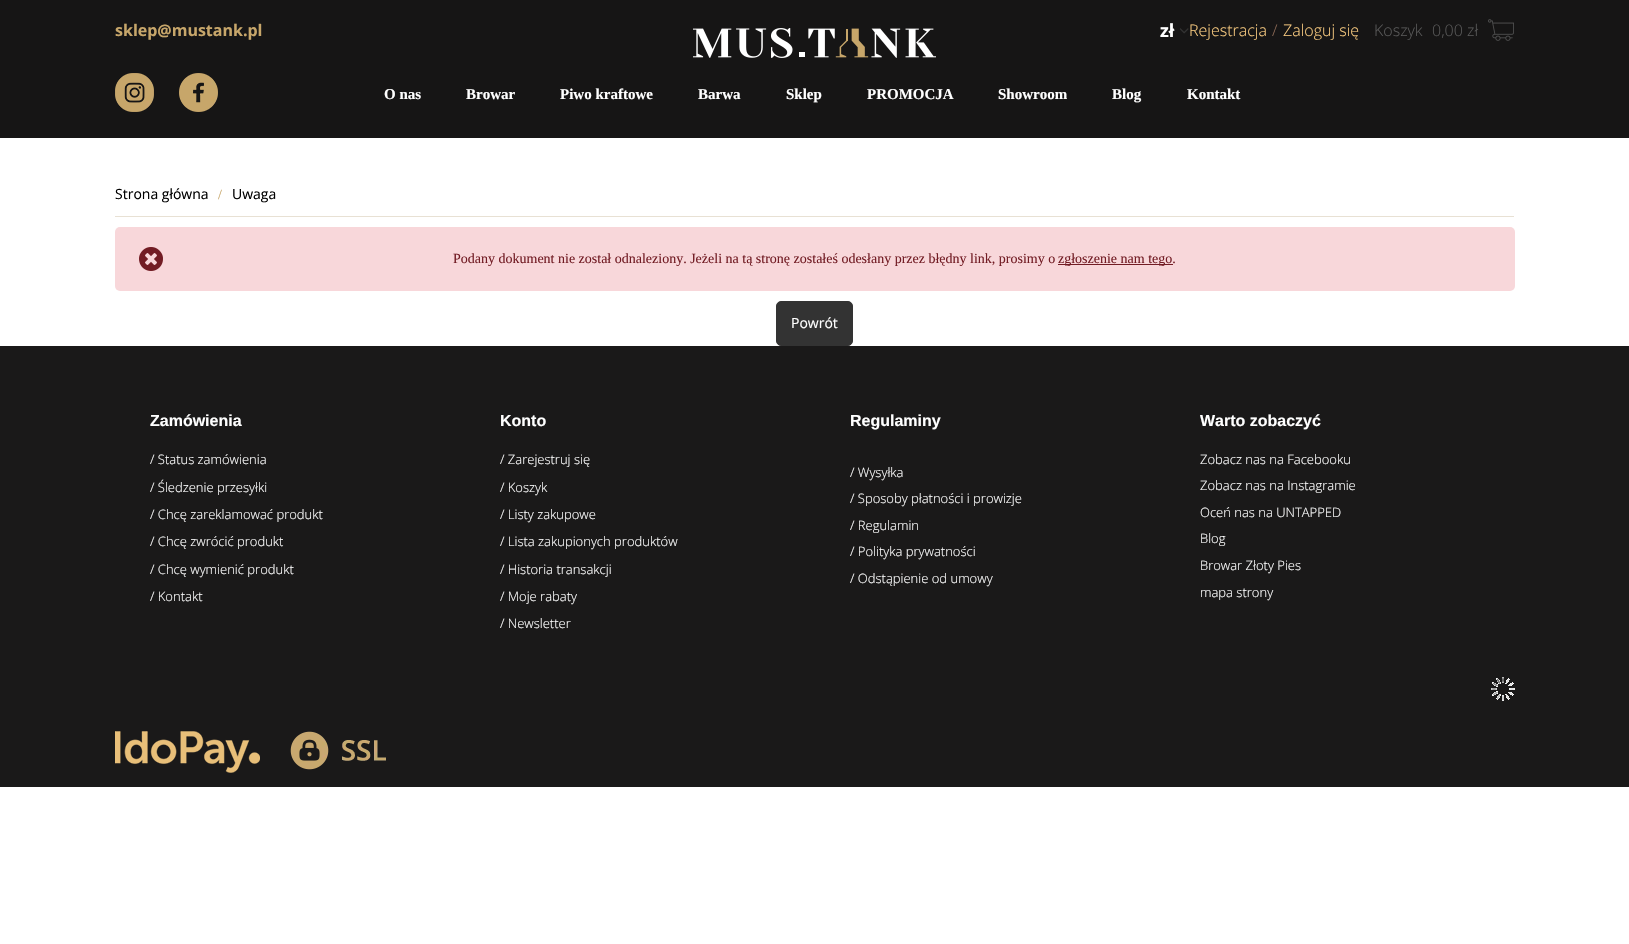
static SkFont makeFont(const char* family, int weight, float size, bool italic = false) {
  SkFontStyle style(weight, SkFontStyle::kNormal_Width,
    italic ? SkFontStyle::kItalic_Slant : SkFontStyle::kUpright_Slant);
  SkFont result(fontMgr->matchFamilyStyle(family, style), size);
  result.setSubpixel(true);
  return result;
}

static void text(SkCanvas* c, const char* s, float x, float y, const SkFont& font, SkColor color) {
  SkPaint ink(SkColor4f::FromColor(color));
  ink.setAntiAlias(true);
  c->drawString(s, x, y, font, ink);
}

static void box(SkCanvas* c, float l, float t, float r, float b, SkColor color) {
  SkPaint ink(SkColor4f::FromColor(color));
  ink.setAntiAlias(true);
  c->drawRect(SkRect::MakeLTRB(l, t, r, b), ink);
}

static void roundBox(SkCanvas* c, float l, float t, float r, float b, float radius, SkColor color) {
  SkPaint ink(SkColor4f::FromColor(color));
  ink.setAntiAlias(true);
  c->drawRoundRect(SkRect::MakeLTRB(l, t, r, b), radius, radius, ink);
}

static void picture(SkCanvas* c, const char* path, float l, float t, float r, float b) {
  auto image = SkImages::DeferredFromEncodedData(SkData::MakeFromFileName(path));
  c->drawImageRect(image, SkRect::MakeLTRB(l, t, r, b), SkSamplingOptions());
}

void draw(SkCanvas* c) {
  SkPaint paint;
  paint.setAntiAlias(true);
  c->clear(0xffffffff);
  box(c, 0, 0, 1629, 138, 0xff161515);
  SkFont face1 = makeFont("Open Sans", 700, 16);
  text(c, "sklep@mustank.pl", 115, 36, face1, 0xffc7a66a);
  picture(c, "img_01.png", 693, 28, 936, 58);
  SkFont face2 = makeFont("Open Sans", 700, 18);
  text(c, "zł", 1160, 37, face2, 0xffffffff);
  picture(c, "img_02.png", 1180, 28, 1189, 34);
  SkFont face3 = makeFont("Open Sans", 300, 16);
  text(c, "Rejestracja", 1189, 36, face3, 0xfff9cb80);
  text(c, "/", 1272, 36, face3, 0xff8b6955);
  text(c, "Zaloguj się", 1283, 36, face3, 0xfff9cb80);
  text(c, "Koszyk", 1374, 36, face3, 0xff595959);
  text(c, "0,00 zł", 1432, 36, face3, 0xff595959);
  picture(c, "img_03.png", 1488, 19, 1514, 41);
  picture(c, "img_04.png", 115, 73, 154, 112);
  picture(c, "img_05.png", 179, 73, 218, 112);
  SkFont face4 = makeFont("Liberation Serif", 700, 15);
  text(c, "O nas", 384, 99, face4, 0xffffffff);
  text(c, "Browar", 466, 99, face4, 0xffffffff);
  text(c, "Piwo kraftowe", 560, 99, face4, 0xffffffff);
  text(c, "Barwa", 698, 99, face4, 0xffffffff);
  text(c, "Sklep", 786, 99, face4, 0xffffffff);
  text(c, "PROMOCJA", 867, 99, face4, 0xffffffff);
  text(c, "Showroom", 998, 99, face4, 0xffffffff);
  text(c, "Blog", 1112, 99, face4, 0xffffffff);
  text(c, "Kontakt", 1187, 99, face4, 0xffffffff);
  box(c, 115, 216, 1514, 217, 0xffe8e1d4);
  SkFont face5 = makeFont("Open Sans", 400, 14);
  text(c, "Strona główna", 115, 199, face5, 0xff000000);
  SkFont face6 = makeFont("Liberation Serif", 400, 14);
  text(c, "/", 218, 199, face6, 0xffc7a66a);
  text(c, "Uwaga", 232, 199, face5, 0xff000000);
  roundBox(c, 115, 227, 1515, 291, 5, 0xfff8d7da);
  picture(c, "img_06.png", 139, 247, 163, 271);
  text(c, "Podany dokument nie został odnaleziony. Jeżeli na tą stronę zostałeś odesłany przez błędny link, prosimy o", 453, 263, face6, 0xff721c24);
  box(c, 1058, 264, 1173, 265, 0xff721c24);
  text(c, "zgłoszenie nam tego.", 1058, 263, face6, 0xff721c24);
  paint.setColor(0xff333333);
  c->drawRoundRect(SkRect::MakeLTRB(776.5f, 301.5f, 852.5f, 345.5f), 4.5f, 4.5f, paint);
  paint.setStyle(SkPaint::kStroke_Style);
  paint.setStrokeWidth(1);
  c->drawRoundRect(SkRect::MakeLTRB(776.5f, 301.5f, 852.5f, 345.5f), 4.5f, 4.5f, paint);
  text(c, "Powrót", 791, 328, face5, 0xffffffff);
  box(c, 0, 346, 1629, 787, 0xff1a1919);
  SkFont face7 = makeFont("Liberation Sans", 700, 16);
  text(c, "Zamówienia", 150, 426, face7, 0xffffffff);
  SkFont face8 = makeFont("Open Sans", 300, 13);
  text(c, "/ Status zamówienia", 150, 464, face8, 0xffffffff);
  text(c, "/ Śledzenie przesyłki", 150, 492, face8, 0xffffffff);
  text(c, "/ Chcę zareklamować produkt", 150, 519, face8, 0xffffffff);
  text(c, "/ Chcę zwrócić produkt", 150, 546, face8, 0xffffffff);
  text(c, "/ Chcę wymienić produkt", 150, 574, face8, 0xffffffff);
  text(c, "/ Kontakt", 150, 601, face8, 0xffffffff);
  text(c, "Konto", 500, 426, face7, 0xffffffff);
  text(c, "/ Zarejestruj się", 500, 464, face8, 0xffffffff);
  text(c, "/ Koszyk", 500, 492, face8, 0xffffffff);
  text(c, "/ Listy zakupowe", 500, 519, face8, 0xffffffff);
  text(c, "/ Lista zakupionych produktów", 500, 546, face8, 0xffffffff);
  text(c, "/ Historia transakcji", 500, 574, face8, 0xffffffff);
  text(c, "/ Moje rabaty", 500, 601, face8, 0xffffffff);
  text(c, "/ Newsletter", 500, 628, face8, 0xffffffff);
  text(c, "Regulaminy", 850, 426, face7, 0xffffffff);
  text(c, "/ Wysyłka", 850, 477, face8, 0xffffffff);
  text(c, "/ Sposoby płatności i prowizje", 850, 503, face8, 0xffffffff);
  text(c, "/ Regulamin", 850, 530, face8, 0xffffffff);
  text(c, "/ Polityka prywatności", 850, 556, face8, 0xffffffff);
  text(c, "/ Odstąpienie od umowy", 850, 583, face8, 0xffffffff);
  text(c, "Warto zobaczyć", 1200, 426, face7, 0xffffffff);
  text(c, "Zobacz nas na Facebooku", 1200, 464, face8, 0xffffffff);
  text(c, "Zobacz nas na Instagramie", 1200, 490, face8, 0xffffffff);
  text(c, "Oceń nas na UNTAPPED", 1200, 517, face8, 0xffffffff);
  text(c, "Blog", 1200, 543, face8, 0xffffffff);
  text(c, "Browar Złoty Pies", 1200, 570, face8, 0xffffffff);
  text(c, "mapa strony", 1200, 597, face8, 0xffffffff);
  picture(c, "img_07.png", 1491, 677, 1515, 701);
  picture(c, "img_08.png", 115, 731, 260, 773);
  picture(c, "img_09.png", 290, 731, 386, 770);
}
